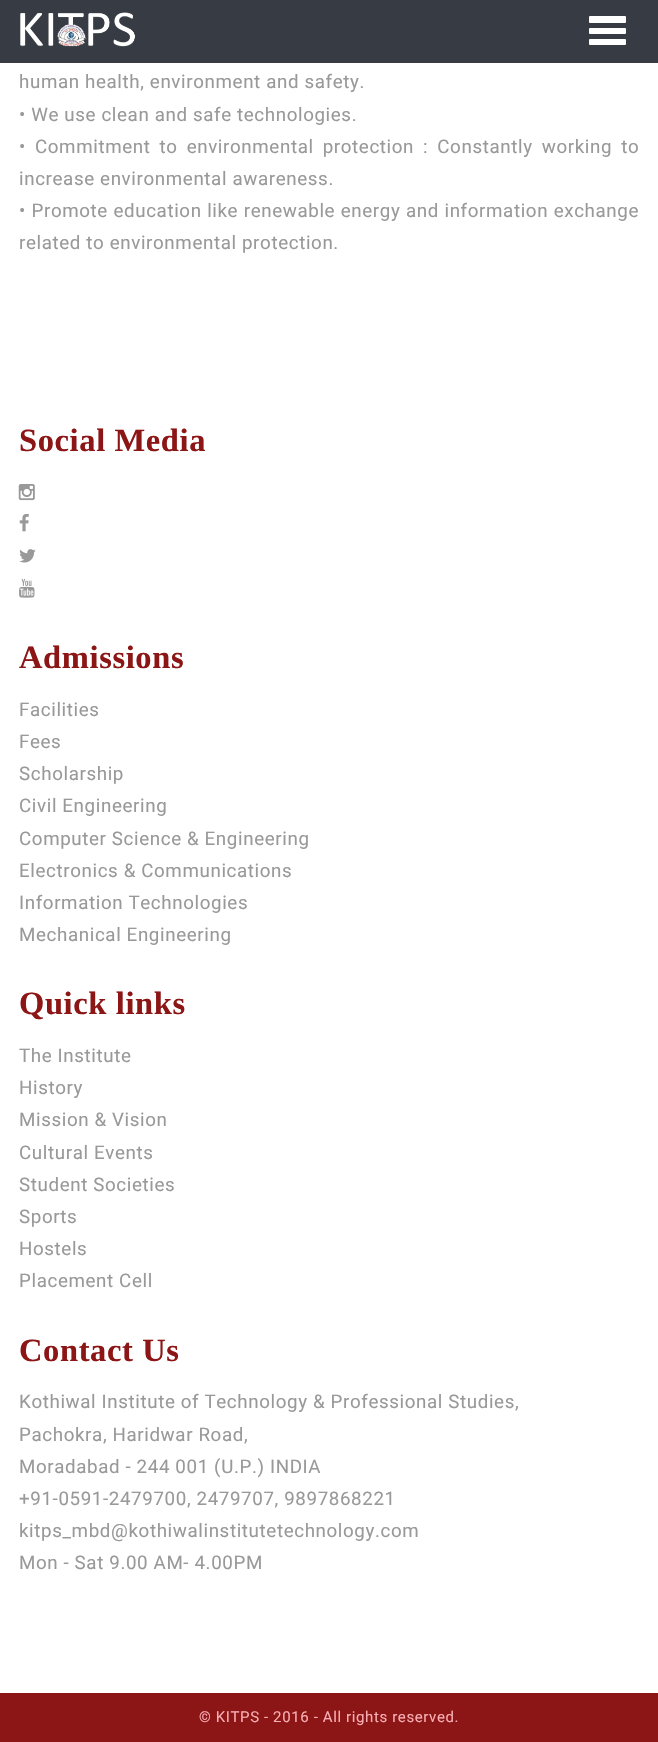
static SkFont makeFont(const char* family, int weight, float size, bool italic = false) {
  SkFontStyle style(weight, SkFontStyle::kNormal_Width,
    italic ? SkFontStyle::kItalic_Slant : SkFontStyle::kUpright_Slant);
  SkFont result(fontMgr->matchFamilyStyle(family, style), size);
  result.setSubpixel(true);
  return result;
}

static void spacedText(SkCanvas* c, const char* s, float x, float y, const SkFont& font, const SkPaint& ink, float letter, float word) {
  std::vector<SkGlyphID> glyphs(font.countText(s, strlen(s), SkTextEncoding::kUTF8));
  std::vector<float> xs(glyphs.size());
  font.textToGlyphs(s, strlen(s), SkTextEncoding::kUTF8, glyphs);
  font.getXPos(glyphs, xs, x);
  float extra = 0;
  for (size_t i = 0; i < glyphs.size(); i++) {
    xs[i] += extra;
    extra += letter + word * (glyphs[i] == font.unicharToGlyph(' '));
  }
  c->drawTextBlob(SkTextBlob::MakeFromPosHGlyphs(glyphs, xs, y, font), 0, 0, ink);
}

static void box(SkCanvas* c, float l, float t, float r, float b, SkColor color) {
  SkPaint ink(SkColor4f::FromColor(color));
  ink.setAntiAlias(true);
  c->drawRect(SkRect::MakeLTRB(l, t, r, b), ink);
}

static void roundBox(SkCanvas* c, float l, float t, float r, float b, float radius, SkColor color) {
  SkPaint ink(SkColor4f::FromColor(color));
  ink.setAntiAlias(true);
  c->drawRoundRect(SkRect::MakeLTRB(l, t, r, b), radius, radius, ink);
}

static void picture(SkCanvas* c, const char* path, float l, float t, float r, float b) {
  auto image = SkImages::DeferredFromEncodedData(SkData::MakeFromFileName(path));
  c->drawImageRect(image, SkRect::MakeLTRB(l, t, r, b), SkSamplingOptions());
}

void draw(SkCanvas* c) {
  SkPaint paint;
  paint.setAntiAlias(true);
  c->clear(0xffffffff);
  box(c, 0, 0, 658, 63, 0xff373b43);
  picture(c, "img_01.png", 20, 12, 135, 47);
  roundBox(c, 589, 16, 626, 23, 1, 0xffffffff);
  roundBox(c, 589, 28, 626, 34, 1, 0xffffffff);
  roundBox(c, 589, 39, 626, 45, 1, 0xffffffff);
  SkFont face1 = makeFont("Roboto", 400, 18.75f);
  paint.setColor(0xff999999);
  spacedText(c, "human health, environment and safety.", 19, 88, face1, paint, 0.62f, 0);
  spacedText(c, "• We use clean and safe technologies.", 19, 121, face1, paint, 0.62f, 0);
  spacedText(c, "• Commitment to environmental protection : Constantly working to", 19, 153, face1, paint, 0.62f, 3.75f);
  spacedText(c, "increase environmental awareness.", 19, 185, face1, paint, 0.62f, 0);
  spacedText(c, "• Promote education like renewable energy and information exchange", 19, 217, face1, paint, 0.62f, 0.25f);
  spacedText(c, "related to environmental protection.", 19, 249, face1, paint, 0.62f, 0);
  SkFont face2 = makeFont("Liberation Serif", 700, 32.5f);
  paint.setColor(0xff8c1515);
  spacedText(c, "Social Media", 19, 451, face2, paint, 0.62f, 0);
  picture(c, "img_02.png", 18, 484, 35, 501);
  picture(c, "img_03.png", 19, 513, 29, 532);
  picture(c, "img_04.png", 19, 549, 36, 563);
  picture(c, "img_05.png", 19, 578, 35, 598);
  spacedText(c, "Admissions", 19, 668, face2, paint, 0.62f, 0);
  paint.setColor(0xff999999);
  spacedText(c, "Facilities", 19, 716, face1, paint, 0.62f, 0);
  spacedText(c, "Fees", 19, 748, face1, paint, 0.62f, 0);
  spacedText(c, "Scholarship", 19, 780, face1, paint, 0.62f, 0);
  spacedText(c, "Civil Engineering", 19, 812, face1, paint, 0.62f, 0);
  spacedText(c, "Computer Science & Engineering", 19, 845, face1, paint, 0.62f, 0);
  spacedText(c, "Electronics & Communications", 19, 877, face1, paint, 0.62f, 0);
  spacedText(c, "Information Technologies", 19, 909, face1, paint, 0.62f, 0);
  spacedText(c, "Mechanical Engineering", 19, 941, face1, paint, 0.62f, 0);
  paint.setColor(0xff8c1515);
  spacedText(c, "Quick links", 19, 1014, face2, paint, 0.62f, 0);
  paint.setColor(0xff999999);
  spacedText(c, "The Institute", 19, 1062, face1, paint, 0.62f, 0);
  spacedText(c, "History", 19, 1094, face1, paint, 0.62f, 0);
  spacedText(c, "Mission & Vision", 19, 1126, face1, paint, 0.62f, 0);
  spacedText(c, "Cultural Events", 19, 1159, face1, paint, 0.62f, 0);
  spacedText(c, "Student Societies", 19, 1191, face1, paint, 0.62f, 0);
  spacedText(c, "Sports", 19, 1223, face1, paint, 0.62f, 0);
  spacedText(c, "Hostels", 19, 1255, face1, paint, 0.62f, 0);
  spacedText(c, "Placement Cell", 19, 1287, face1, paint, 0.62f, 0);
  paint.setColor(0xff8c1515);
  spacedText(c, "Contact Us", 19, 1361, face2, paint, 0.62f, 0);
  paint.setColor(0xff999999);
  spacedText(c, "Kothiwal Institute of Technology & Professional Studies,", 19, 1408, face1, paint, 0.62f, 0);
  spacedText(c, "Pachokra, Haridwar Road,", 19, 1441, face1, paint, 0.62f, 0);
  spacedText(c, "Moradabad - 244 001 (U.P.) INDIA", 19, 1473, face1, paint, 0.62f, 0);
  spacedText(c, "+91-0591-2479700, 2479707, 9897868221", 19, 1505, face1, paint, 0.62f, 0);
  spacedText(c, "kitps_mbd@kothiwalinstitutetechnology.com", 19, 1537, face1, paint, 0.62f, 0);
  spacedText(c, "Mon - Sat 9.00 AM- 4.00PM", 19, 1569, face1, paint, 0.62f, 0);
  box(c, 0, 1693, 658, 1742, 0xff8c1515);
  SkFont face3 = makeFont("Roboto", 400, 15);
  paint.setColor(0xfff8aeb4);
  spacedText(c, "© KITPS - 2016 - All rights reserved.", 199, 1722, face3, paint, 0.62f, 0);
}
